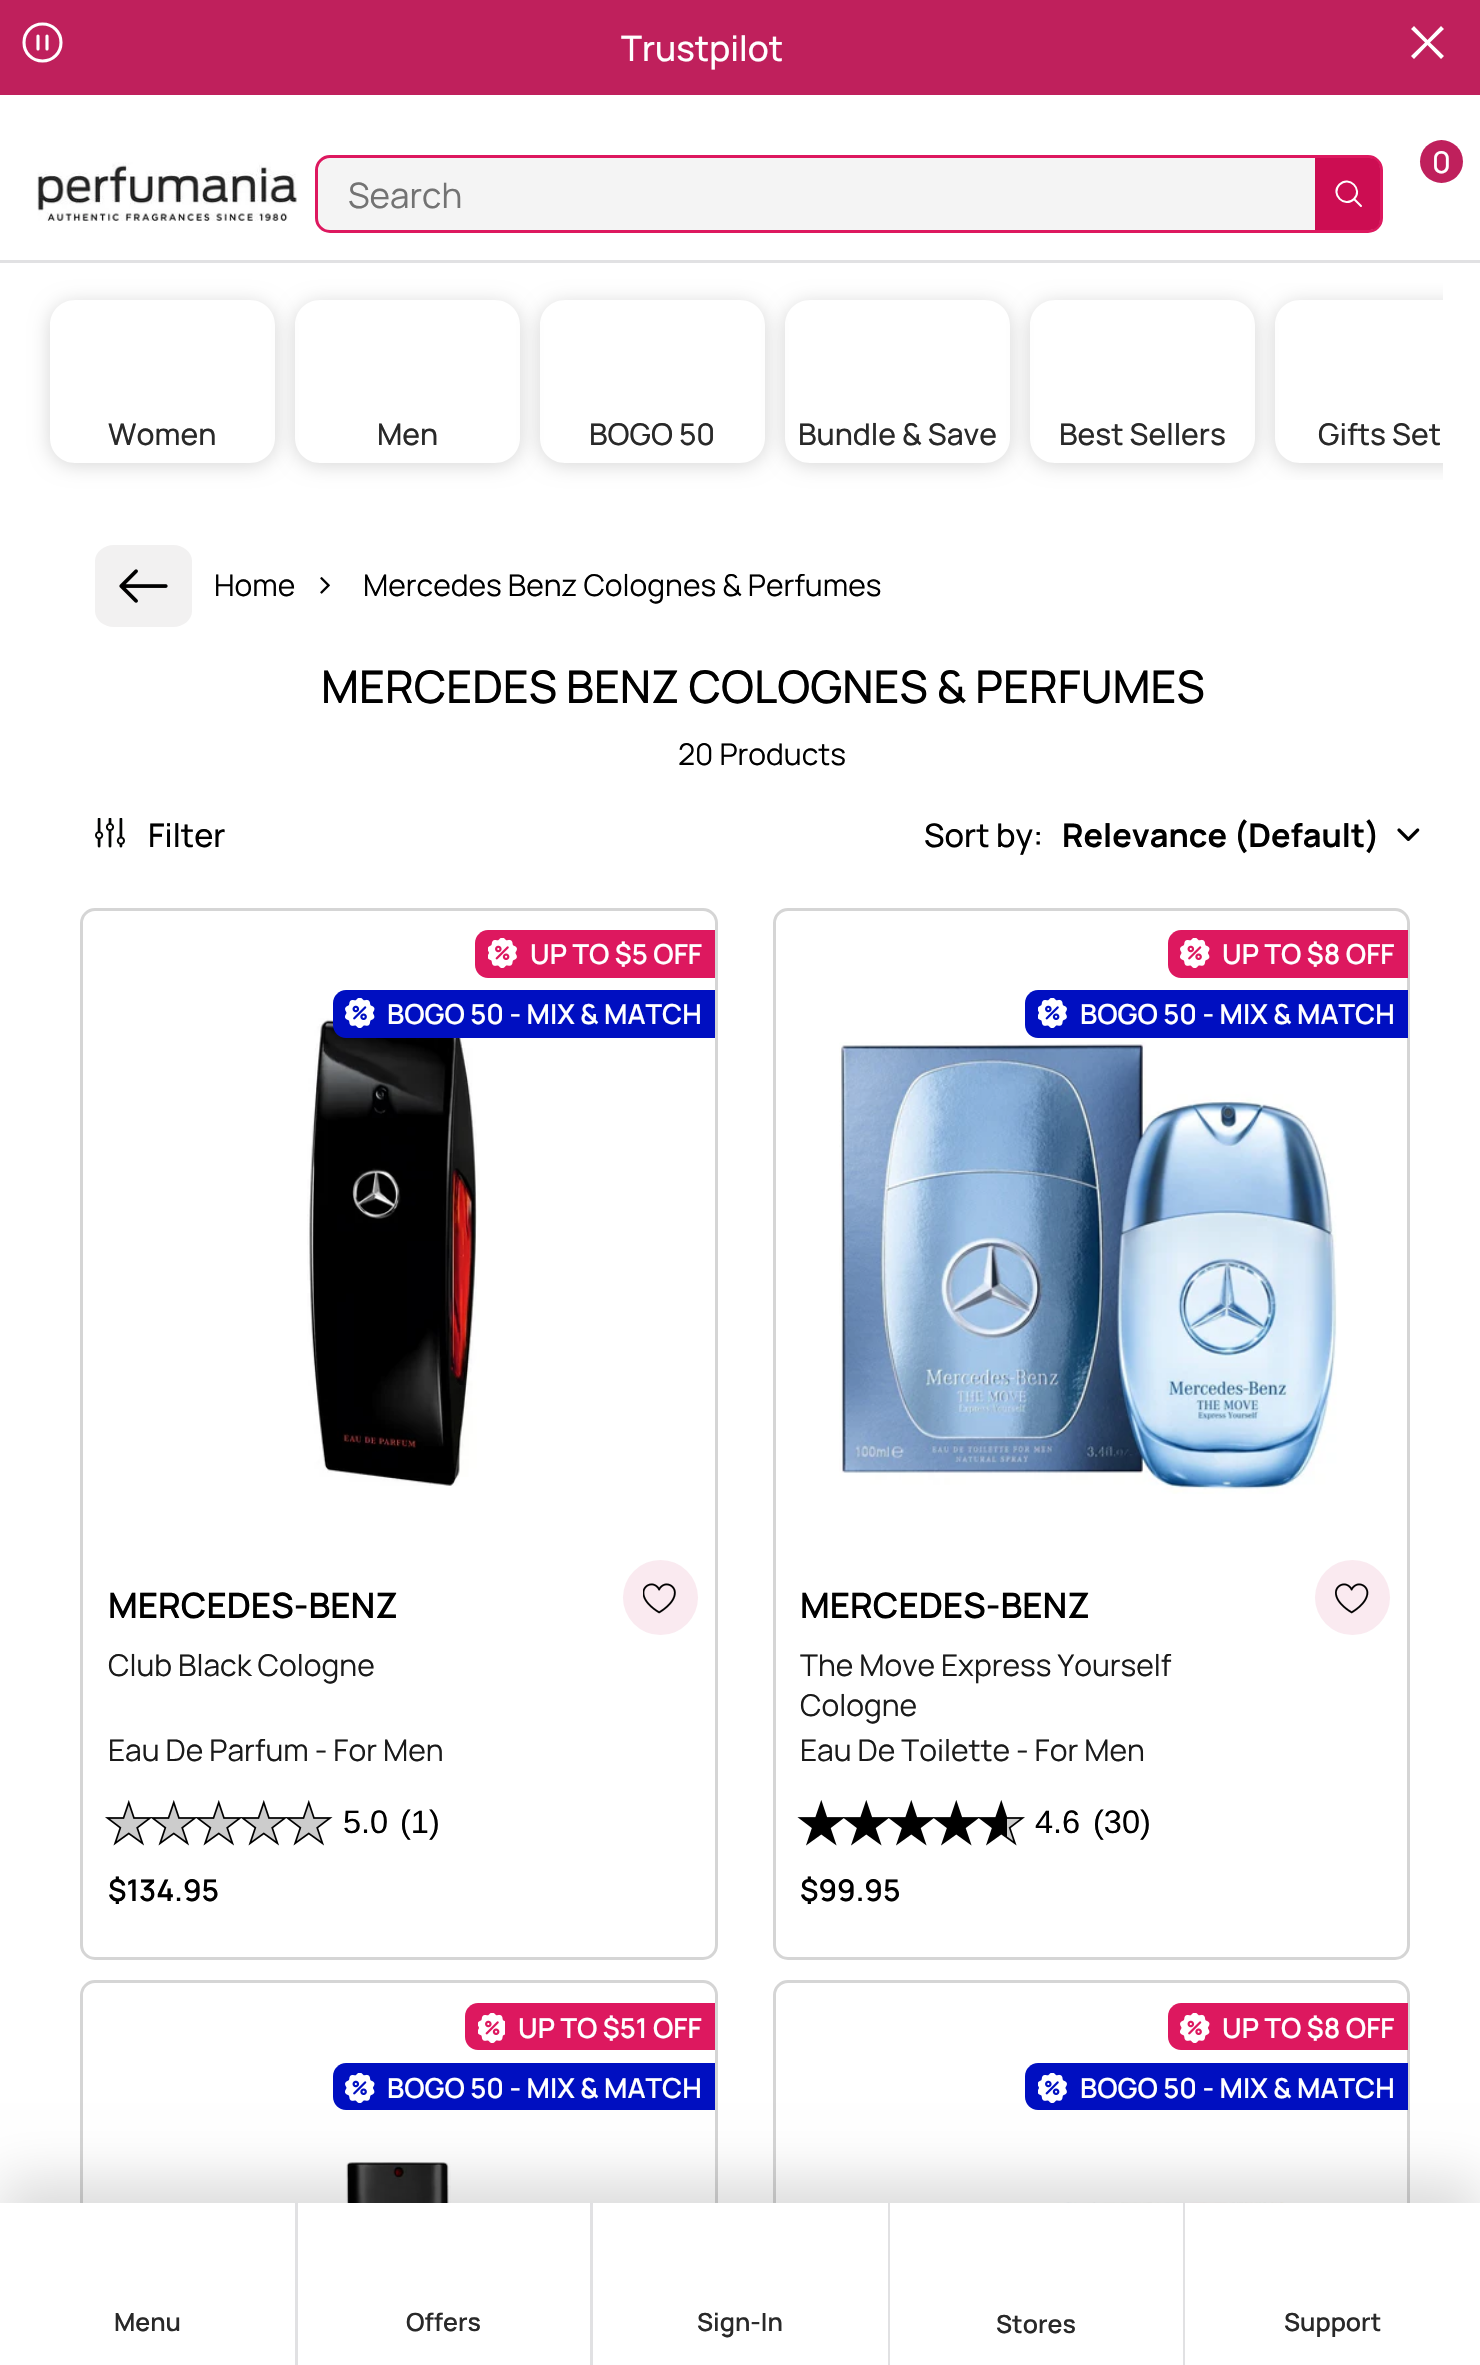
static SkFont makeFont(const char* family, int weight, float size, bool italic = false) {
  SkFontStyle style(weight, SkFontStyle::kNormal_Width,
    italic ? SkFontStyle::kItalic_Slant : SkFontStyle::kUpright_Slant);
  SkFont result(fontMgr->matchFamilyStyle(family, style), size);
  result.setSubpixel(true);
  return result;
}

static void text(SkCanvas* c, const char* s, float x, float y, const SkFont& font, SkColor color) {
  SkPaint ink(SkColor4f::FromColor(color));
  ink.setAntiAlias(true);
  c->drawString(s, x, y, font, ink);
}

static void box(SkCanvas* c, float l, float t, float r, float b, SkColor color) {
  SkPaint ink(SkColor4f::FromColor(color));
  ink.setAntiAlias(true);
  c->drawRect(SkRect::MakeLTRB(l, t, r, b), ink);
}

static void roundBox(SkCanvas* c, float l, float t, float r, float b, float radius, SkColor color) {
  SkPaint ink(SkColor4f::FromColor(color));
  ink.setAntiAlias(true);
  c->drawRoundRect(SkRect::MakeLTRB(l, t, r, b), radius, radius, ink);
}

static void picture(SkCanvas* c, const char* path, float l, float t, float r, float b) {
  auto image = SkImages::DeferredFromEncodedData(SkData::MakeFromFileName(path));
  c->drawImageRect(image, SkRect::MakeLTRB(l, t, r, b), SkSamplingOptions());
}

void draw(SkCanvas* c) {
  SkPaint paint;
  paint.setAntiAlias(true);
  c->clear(0xffffffff);
  box(c, 0, 0, 1480, 95, 0xffbf205c);
  paint.setStyle(SkPaint::kStroke_Style);
  paint.setStrokeWidth(3.1f);
  paint.setStrokeCap(SkPaint::kRound_Cap);
  paint.setStrokeJoin(SkPaint::kRound_Join);
  paint.setColor(0xffffffff);
  c->drawPath(SkPathBuilder().moveTo(47, 36).lineTo(47, 49).moveTo(38, 49).lineTo(38, 36).moveTo(61, 42.5f).cubicTo(61, 53, 53, 61, 42.5f, 61).cubicTo(32, 61, 24, 53, 24, 42.5f).cubicTo(24, 32, 32, 24, 42.5f, 24).cubicTo(53, 24, 61, 32, 61, 42.5f).close().detach(), paint);
  SkFont face1 = makeFont("Manrope", 500, 35);
  text(c, "Trustpilot", 621, 61, face1, 0xffffffff);
  paint.setStyle(SkPaint::kFill_Style);
  c->drawPath(SkPathBuilder().moveTo(1414, 26).lineTo(1411, 29).lineTo(1425, 42.5f).lineTo(1411, 56).lineTo(1414, 59).lineTo(1427.5f, 45).lineTo(1441, 59).lineTo(1444, 56).lineTo(1430, 42.5f).lineTo(1444, 29).lineTo(1441, 26).lineTo(1427.5f, 40).close().detach(), paint);
  box(c, 0, 260, 1480, 263, 0xffe1e1e3);
  picture(c, "img_01.png", 37, 162, 298, 221);
  roundBox(c, 318, 158, 1380, 230, 13, 0xfff4f4f4);
  paint.setStyle(SkPaint::kStroke_Style);
  paint.setStrokeWidth(3);
  paint.setStrokeCap(SkPaint::kButt_Cap);
  paint.setStrokeJoin(SkPaint::kMiter_Join);
  paint.setColor(0xffdd185f);
  c->drawRoundRect(SkRect::MakeLTRB(316.5f, 156.5f, 1381.5f, 231.5f), 13.5f, 13.5f, paint);
  SkFont face2 = makeFont("Manrope", 400, 35);
  text(c, "Search", 348, 208, face2, 0xff737373);
  paint.setStyle(SkPaint::kFill_Style);
  paint.setColor(0xffcc0d52);
  c->drawPath(SkPathBuilder().moveTo(1315, 158).lineTo(1370, 158).cubicTo(1375.5f, 158, 1380, 162.5f, 1380, 168).lineTo(1380, 220).cubicTo(1380, 225.5f, 1375.5f, 230, 1370, 230).lineTo(1315, 230).close().detach(), paint);
  paint.setStyle(SkPaint::kStroke_Style);
  paint.setStrokeWidth(2);
  paint.setStrokeCap(SkPaint::kRound_Cap);
  paint.setStrokeJoin(SkPaint::kRound_Join);
  paint.setColor(0xffffffff);
  c->drawPath(SkPathBuilder().moveTo(1361, 206).lineTo(1354, 199).moveTo(1354, 199).cubicTo(1363.5f, 189.5f, 1349, 175, 1339.5f, 184.5f).cubicTo(1330, 194, 1344.5f, 208.5f, 1354, 199).close().detach(), paint);
  paint.setStyle(SkPaint::kFill_Style);
  paint.setColor(0xffbf205c);
  c->drawCircle(1441.5f, 161.5f, 21.5f, paint);
  SkFont face3 = makeFont("Manrope", 500, 30);
  text(c, "0", 1432, 173, face3, 0xffffffff);
  c->save();
  c->clipPath(SkPathBuilder(SkPathFillType::kEvenOdd).moveTo(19, 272).lineTo(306, 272).lineTo(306, 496).lineTo(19, 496).close().moveTo(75, 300).lineTo(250, 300).cubicTo(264, 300, 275, 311, 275, 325).lineTo(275, 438).cubicTo(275, 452, 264, 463, 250, 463).lineTo(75, 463).cubicTo(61, 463, 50, 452, 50, 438).lineTo(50, 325).cubicTo(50, 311, 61, 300, 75, 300).close().detach(), true);
  paint.setColor(0x29000000);
  paint.setMaskFilter(SkMaskFilter::MakeBlur(kNormal_SkBlurStyle, 10));
  c->drawRoundRect(SkRect::MakeLTRB(50, 303, 275, 465), 25, 25, paint);
  paint.setMaskFilter(nullptr);
  c->restore();
  text(c, "Women", 108, 445, face3, 0xff292929);
  c->save();
  c->clipPath(SkPathBuilder(SkPathFillType::kEvenOdd).moveTo(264, 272).lineTo(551, 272).lineTo(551, 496).lineTo(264, 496).close().moveTo(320, 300).lineTo(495, 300).cubicTo(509, 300, 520, 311, 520, 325).lineTo(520, 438).cubicTo(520, 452, 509, 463, 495, 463).lineTo(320, 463).cubicTo(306, 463, 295, 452, 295, 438).lineTo(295, 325).cubicTo(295, 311, 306, 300, 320, 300).close().detach(), true);
  paint.setMaskFilter(SkMaskFilter::MakeBlur(kNormal_SkBlurStyle, 10));
  c->drawRoundRect(SkRect::MakeLTRB(295, 303, 520, 465), 25, 25, paint);
  paint.setMaskFilter(nullptr);
  c->restore();
  text(c, "Men", 377, 445, face3, 0xff292929);
  c->save();
  c->clipPath(SkPathBuilder(SkPathFillType::kEvenOdd).moveTo(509, 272).lineTo(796, 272).lineTo(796, 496).lineTo(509, 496).close().moveTo(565, 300).lineTo(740, 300).cubicTo(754, 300, 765, 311, 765, 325).lineTo(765, 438).cubicTo(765, 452, 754, 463, 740, 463).lineTo(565, 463).cubicTo(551, 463, 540, 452, 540, 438).lineTo(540, 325).cubicTo(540, 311, 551, 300, 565, 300).close().detach(), true);
  paint.setMaskFilter(SkMaskFilter::MakeBlur(kNormal_SkBlurStyle, 10));
  c->drawRoundRect(SkRect::MakeLTRB(540, 303, 765, 465), 25, 25, paint);
  paint.setMaskFilter(nullptr);
  c->restore();
  text(c, "BOGO 50", 589, 445, face3, 0xff292929);
  c->save();
  c->clipPath(SkPathBuilder(SkPathFillType::kEvenOdd).moveTo(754, 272).lineTo(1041, 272).lineTo(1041, 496).lineTo(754, 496).close().moveTo(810, 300).lineTo(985, 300).cubicTo(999, 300, 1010, 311, 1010, 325).lineTo(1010, 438).cubicTo(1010, 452, 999, 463, 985, 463).lineTo(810, 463).cubicTo(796, 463, 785, 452, 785, 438).lineTo(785, 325).cubicTo(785, 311, 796, 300, 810, 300).close().detach(), true);
  paint.setMaskFilter(SkMaskFilter::MakeBlur(kNormal_SkBlurStyle, 10));
  c->drawRoundRect(SkRect::MakeLTRB(785, 303, 1010, 465), 25, 25, paint);
  paint.setMaskFilter(nullptr);
  c->restore();
  text(c, "Bundle & Save", 798, 445, face3, 0xff292929);
  c->save();
  c->clipPath(SkPathBuilder(SkPathFillType::kEvenOdd).moveTo(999, 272).lineTo(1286, 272).lineTo(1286, 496).lineTo(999, 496).close().moveTo(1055, 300).lineTo(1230, 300).cubicTo(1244, 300, 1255, 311, 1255, 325).lineTo(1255, 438).cubicTo(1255, 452, 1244, 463, 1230, 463).lineTo(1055, 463).cubicTo(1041, 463, 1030, 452, 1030, 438).lineTo(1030, 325).cubicTo(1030, 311, 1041, 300, 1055, 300).close().detach(), true);
  paint.setMaskFilter(SkMaskFilter::MakeBlur(kNormal_SkBlurStyle, 10));
  c->drawRoundRect(SkRect::MakeLTRB(1030, 303, 1255, 465), 25, 25, paint);
  paint.setMaskFilter(nullptr);
  c->restore();
  text(c, "Best Sellers", 1059, 445, face3, 0xff292929);
  c->save();
  c->clipRect(SkRect::MakeLTRB(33, 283, 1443, 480));
  c->clipPath(SkPathBuilder(SkPathFillType::kEvenOdd).moveTo(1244, 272).lineTo(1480, 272).lineTo(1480, 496).lineTo(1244, 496).close().moveTo(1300, 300).lineTo(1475, 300).cubicTo(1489, 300, 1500, 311, 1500, 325).lineTo(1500, 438).cubicTo(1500, 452, 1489, 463, 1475, 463).lineTo(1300, 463).cubicTo(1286, 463, 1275, 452, 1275, 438).lineTo(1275, 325).cubicTo(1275, 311, 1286, 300, 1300, 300).close().detach(), true);
  paint.setMaskFilter(SkMaskFilter::MakeBlur(kNormal_SkBlurStyle, 10));
  c->drawRoundRect(SkRect::MakeLTRB(1275, 303, 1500, 465), 25, 25, paint);
  paint.setMaskFilter(nullptr);
  c->restore();
  text(c, "Gifts Set", 1318, 445, face3, 0xff292929);
  paint.setColor(0xfff2f1f1);
  c->drawPath(SkPathBuilder().moveTo(173, 627).lineTo(114, 627).cubicTo(104, 627, 95, 620, 95, 611).lineTo(95, 561).cubicTo(95, 552, 104, 545, 114, 545).lineTo(173, 545).cubicTo(183, 545, 192, 552, 192, 561).lineTo(192, 611).cubicTo(192, 620, 183, 627, 173, 627).close().detach(), paint);
  picture(c, "img_02.png", 119, 569, 168, 603);
  SkFont face4 = makeFont("Manrope", 400, 30);
  text(c, "Home", 214, 596, face4, 0xff000000);
  picture(c, "img_03.png", 320, 577, 330, 594);
  text(c, "Mercedes Benz Colognes & Perfumes", 363, 596, face4, 0xff000000);
  SkFont face5 = makeFont("Manrope", 500, 45);
  text(c, "MERCEDES BENZ COLOGNES & PERFUMES", 321, 703, face5, 0xff000000);
  text(c, "20 Products", 678, 765, face4, 0xff000000);
  picture(c, "img_04.png", 95, 818, 125, 848);
  SkFont face6 = makeFont("Manrope", 500, 32.5f);
  text(c, "Filter", 148, 847, face6, 0xff000000);
  text(c, "Sort by:", 924, 847, face6, 0xff000000);
  SkFont face7 = makeFont("Manrope", 700, 32.5f);
  text(c, "Relevance (Default)", 1062, 847, face7, 0xff000000);
  picture(c, "img_05.png", 1397, 828, 1420, 841);
  paint.setStyle(SkPaint::kStroke_Style);
  paint.setStrokeWidth(3);
  paint.setStrokeCap(SkPaint::kButt_Cap);
  paint.setStrokeJoin(SkPaint::kMiter_Join);
  paint.setColor(0xffd5d5d5);
  c->drawRoundRect(SkRect::MakeLTRB(81.5f, 909.5f, 716.5f, 1958.5f), 13.5f, 13.5f, paint);
  paint.setStyle(SkPaint::kFill_Style);
  paint.setColor(0xffdd185f);
  c->drawPath(SkPathBuilder().moveTo(488, 930).lineTo(715, 930).lineTo(715, 978).lineTo(488, 978).cubicTo(481, 978, 475, 972, 475, 965).lineTo(475, 943).cubicTo(475, 936, 481, 930, 488, 930).close().detach(), paint);
  picture(c, "img_06.png", 488, 938, 517, 968);
  SkFont face8 = makeFont("Manrope", 600, 27.5f);
  text(c, "UP TO $5 OFF", 530, 964, face8, 0xffffffff);
  picture(c, "img_08.png", 307, 1018, 480, 1486);
  paint.setColor(0xff000fc1);
  c->drawPath(SkPathBuilder().moveTo(346, 990).lineTo(715, 990).lineTo(715, 1038).lineTo(346, 1038).cubicTo(339, 1038, 333, 1032, 333, 1025).lineTo(333, 1003).cubicTo(333, 996, 339, 990, 346, 990).close().detach(), paint);
  picture(c, "img_07.png", 345, 998, 375, 1028);
  text(c, "BOGO 50 - MIX & MATCH", 387, 1024, face8, 0xffffffff);
  SkFont face9 = makeFont("Manrope", 600, 35);
  text(c, "MERCEDES-BENZ", 108, 1618, face9, 0xff000000);
  paint.setColor(0xfffaeaf0);
  c->drawCircle(660.5f, 1597.5f, 37.5f, paint);
  picture(c, "img_09.png", 643, 1583, 676, 1614);
  text(c, "Club Black Cologne", 108, 1676, face4, 0xff1a1a1a);
  text(c, "Eau De Parfum - For Men", 108, 1761, face4, 0xff1a1a1a);
  picture(c, "img_10.png", 105, 1800, 153, 1846);
  picture(c, "img_11.png", 150, 1800, 198, 1846);
  picture(c, "img_11.png", 195, 1800, 243, 1846);
  picture(c, "img_11.png", 240, 1800, 288, 1846);
  picture(c, "img_11.png", 285, 1800, 333, 1846);
  SkFont face10 = makeFont("Liberation Sans", 400, 32.5f);
  text(c, "5.0", 343, 1833, face10, 0xff000000);
  text(c, "(1)", 400, 1833, face10, 0xff000000);
  SkFont face11 = makeFont("Manrope", 600, 30);
  text(c, "$134.95", 108, 1901, face11, 0xff000000);
  paint.setStyle(SkPaint::kStroke_Style);
  paint.setColor(0xffd5d5d5);
  c->drawRoundRect(SkRect::MakeLTRB(774.5f, 909.5f, 1408.5f, 1958.5f), 13.5f, 13.5f, paint);
  paint.setStyle(SkPaint::kFill_Style);
  paint.setColor(0xffdd185f);
  c->drawPath(SkPathBuilder().moveTo(1181, 930).lineTo(1408, 930).lineTo(1408, 978).lineTo(1181, 978).cubicTo(1174, 978, 1168, 972, 1168, 965).lineTo(1168, 943).cubicTo(1168, 936, 1174, 930, 1181, 930).close().detach(), paint);
  picture(c, "img_12.png", 1180, 938, 1210, 968);
  text(c, "UP TO $8 OFF", 1222, 964, face8, 0xffffffff);
  paint.setColor(0xff000fc1);
  c->drawPath(SkPathBuilder().moveTo(1038, 990).lineTo(1408, 990).lineTo(1408, 1038).lineTo(1038, 1038).cubicTo(1031, 1038, 1025, 1032, 1025, 1025).lineTo(1025, 1003).cubicTo(1025, 996, 1031, 990, 1038, 990).close().detach(), paint);
  picture(c, "img_13.png", 1038, 998, 1067, 1028);
  text(c, "BOGO 50 - MIX & MATCH", 1080, 1024, face8, 0xffffffff);
  picture(c, "img_14.png", 839, 1042, 1337, 1494);
  text(c, "MERCEDES-BENZ", 800, 1618, face9, 0xff000000);
  paint.setColor(0xfffaeaf0);
  c->drawCircle(1352.5f, 1597.5f, 37.5f, paint);
  picture(c, "img_15.png", 1335, 1583, 1369, 1614);
  text(c, "The Move Express Yourself", 800, 1676, face4, 0xff1a1a1a);
  text(c, "Cologne", 800, 1716, face4, 0xff1a1a1a);
  text(c, "Eau De Toilette - For Men", 800, 1761, face4, 0xff1a1a1a);
  picture(c, "img_16.png", 797, 1800, 845, 1846);
  picture(c, "img_17.png", 843, 1800, 890, 1846);
  picture(c, "img_17.png", 888, 1800, 935, 1846);
  picture(c, "img_17.png", 933, 1800, 980, 1846);
  picture(c, "img_18.png", 978, 1800, 1025, 1846);
  text(c, "4.6", 1035, 1833, face10, 0xff000000);
  text(c, "(30)", 1093, 1833, face10, 0xff000000);
  text(c, "$99.95", 800, 1901, face11, 0xff000000);
  paint.setStyle(SkPaint::kStroke_Style);
  paint.setColor(0xffd5d5d5);
  c->drawRoundRect(SkRect::MakeLTRB(81.5f, 1981.5f, 716.5f, 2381.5f), 13.5f, 13.5f, paint);
  paint.setStyle(SkPaint::kFill_Style);
  paint.setColor(0xffdd185f);
  c->drawPath(SkPathBuilder().moveTo(478, 2003).lineTo(715, 2003).lineTo(715, 2050).lineTo(478, 2050).cubicTo(471, 2050, 465, 2044, 465, 2037).lineTo(465, 2016).cubicTo(465, 2009, 471, 2003, 478, 2003).close().detach(), paint);
  picture(c, "img_19.png", 478, 2013, 505, 2043);
  text(c, "UP TO $51 OFF", 518, 2038, face8, 0xffffffff);
  paint.setColor(0xff000fc1);
  c->drawPath(SkPathBuilder().moveTo(346, 2063).lineTo(715, 2063).lineTo(715, 2110).lineTo(346, 2110).cubicTo(339, 2110, 333, 2104, 333, 2097).lineTo(333, 2076).cubicTo(333, 2069, 339, 2063, 346, 2063).close().detach(), paint);
  picture(c, "img_07.png", 345, 2073, 375, 2103);
  text(c, "BOGO 50 - MIX & MATCH", 387, 2098, face8, 0xffffffff);
  picture(c, "img_20.png", 302, 2162, 494, 2203);
  paint.setStyle(SkPaint::kStroke_Style);
  paint.setColor(0xffd5d5d5);
  c->drawRoundRect(SkRect::MakeLTRB(774.5f, 1981.5f, 1408.5f, 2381.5f), 13.5f, 13.5f, paint);
  paint.setStyle(SkPaint::kFill_Style);
  paint.setColor(0xffdd185f);
  c->drawPath(SkPathBuilder().moveTo(1181, 2003).lineTo(1408, 2003).lineTo(1408, 2050).lineTo(1181, 2050).cubicTo(1174, 2050, 1168, 2044, 1168, 2037).lineTo(1168, 2016).cubicTo(1168, 2009, 1174, 2003, 1181, 2003).close().detach(), paint);
  picture(c, "img_12.png", 1180, 2013, 1210, 2043);
  text(c, "UP TO $8 OFF", 1222, 2038, face8, 0xffffffff);
  paint.setColor(0xff000fc1);
  c->drawPath(SkPathBuilder().moveTo(1038, 2063).lineTo(1408, 2063).lineTo(1408, 2110).lineTo(1038, 2110).cubicTo(1031, 2110, 1025, 2104, 1025, 2097).lineTo(1025, 2076).cubicTo(1025, 2069, 1031, 2063, 1038, 2063).close().detach(), paint);
  picture(c, "img_13.png", 1038, 2073, 1067, 2103);
  text(c, "BOGO 50 - MIX & MATCH", 1080, 2098, face8, 0xffffffff);
  picture(c, "img_21.png", 890, 2202, 1284, 2203);
  paint.setColor(0x24000000);
  paint.setMaskFilter(SkMaskFilter::MakeBlur(kNormal_SkBlurStyle, 26));
  c->drawRect(SkRect::MakeLTRB(0, 2180, 1480, 2343), paint);
  paint.setMaskFilter(nullptr);
  box(c, 0, 2203, 888, 2365, 0xffffffff);
  box(c, 295, 2203, 298, 2365, 0xffe1e1e3);
  SkFont face12 = makeFont("Manrope", 600, 25);
  text(c, "Menu", 114, 2331, face12, 0xff292929);
  box(c, 590, 2203, 593, 2365, 0xffe1e1e3);
  text(c, "Offers", 406, 2331, face12, 0xff292929);
  box(c, 888, 2203, 890, 2365, 0xffe1e1e3);
  text(c, "Sign-In", 697, 2331, face12, 0xff292929);
  box(c, 1183, 2203, 1185, 2365, 0xffe1e1e3);
  box(c, 890, 2203, 1183, 2365, 0xffffffff);
  text(c, "Stores", 996, 2333, face12, 0xff292929);
  box(c, 1185, 2203, 1480, 2365, 0xffffffff);
  text(c, "Support", 1284, 2331, face12, 0xff292929);
}
